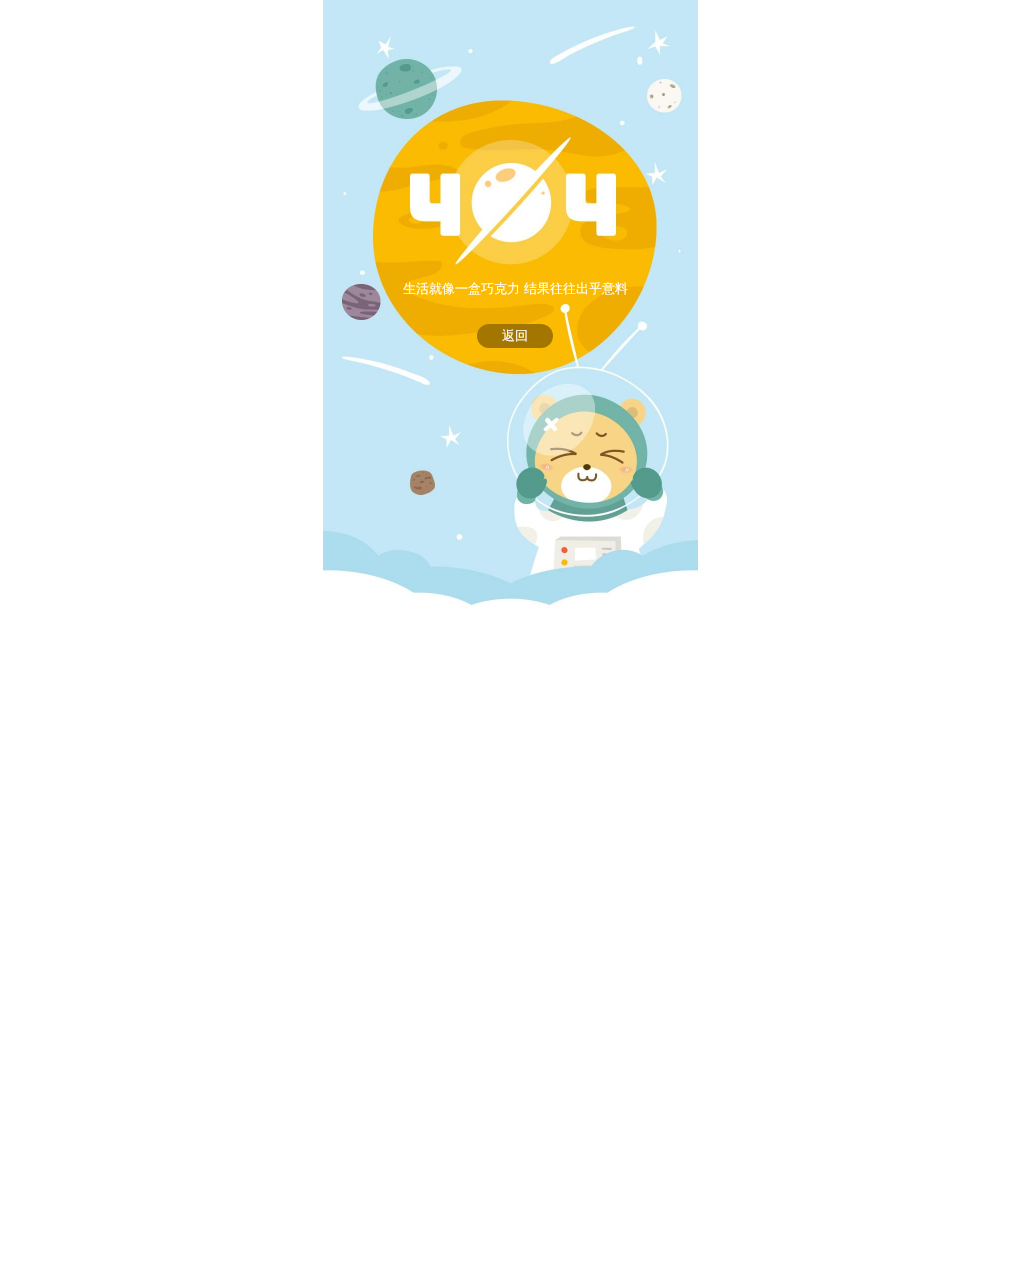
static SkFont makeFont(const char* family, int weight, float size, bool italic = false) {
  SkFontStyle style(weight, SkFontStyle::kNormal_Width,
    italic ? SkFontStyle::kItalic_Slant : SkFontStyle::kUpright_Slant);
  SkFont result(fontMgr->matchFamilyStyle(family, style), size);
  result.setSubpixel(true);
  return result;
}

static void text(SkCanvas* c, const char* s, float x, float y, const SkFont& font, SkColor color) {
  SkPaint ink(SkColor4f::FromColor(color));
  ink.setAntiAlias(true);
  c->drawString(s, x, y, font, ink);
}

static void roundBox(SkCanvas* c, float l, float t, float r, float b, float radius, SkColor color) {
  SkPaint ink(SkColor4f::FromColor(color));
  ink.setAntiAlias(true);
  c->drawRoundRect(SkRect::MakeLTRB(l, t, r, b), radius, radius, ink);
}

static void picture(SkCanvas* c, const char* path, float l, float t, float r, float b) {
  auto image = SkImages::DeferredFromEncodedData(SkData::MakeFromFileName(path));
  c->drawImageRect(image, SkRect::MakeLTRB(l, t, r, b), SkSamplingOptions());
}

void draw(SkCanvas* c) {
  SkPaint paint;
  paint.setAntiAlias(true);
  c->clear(0xffffffff);
  picture(c, "img_01.png", 323, 0, 698, 608);
  SkFont face1 = makeFont("WenQuanYi Zen Hei", 500, 13);
  text(c, "生活就像一盒巧克力 结果往往出乎意料", 403, 293, face1, 0xffffffff);
  roundBox(c, 477, 324, 553, 348, 12, 0xffa37600);
  text(c, "返回", 502, 340, face1, 0xffffffff);
}
